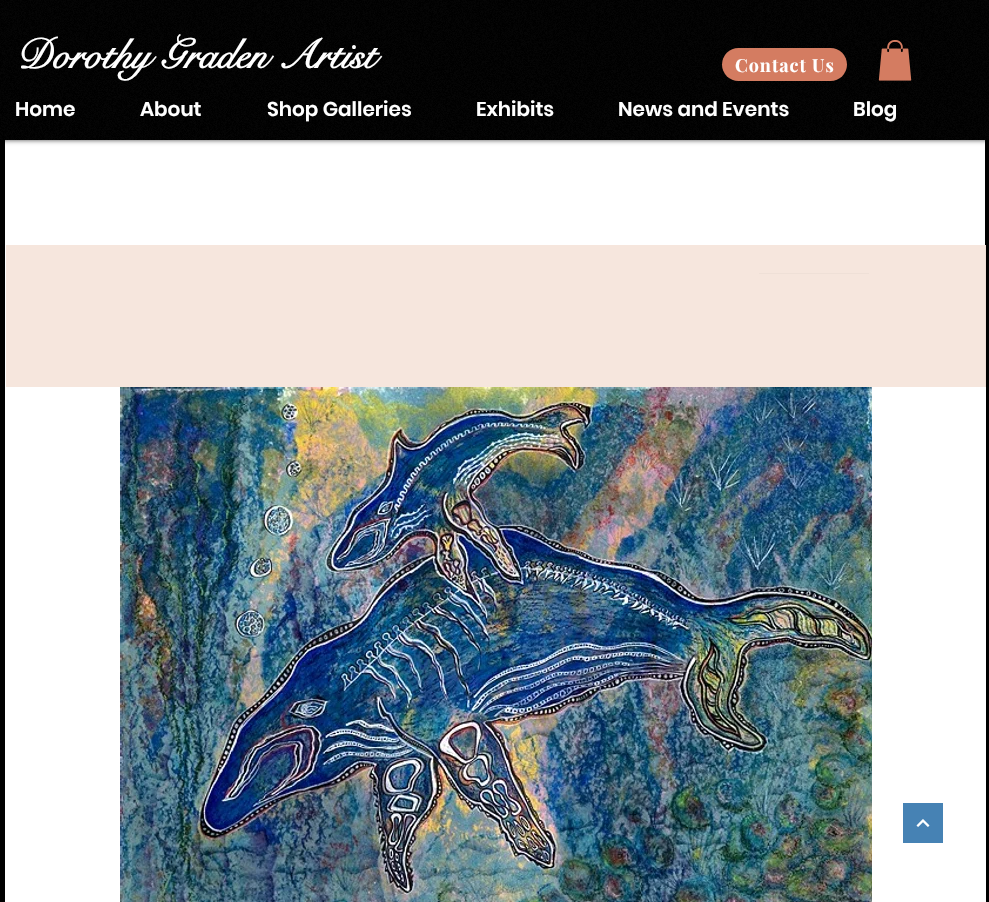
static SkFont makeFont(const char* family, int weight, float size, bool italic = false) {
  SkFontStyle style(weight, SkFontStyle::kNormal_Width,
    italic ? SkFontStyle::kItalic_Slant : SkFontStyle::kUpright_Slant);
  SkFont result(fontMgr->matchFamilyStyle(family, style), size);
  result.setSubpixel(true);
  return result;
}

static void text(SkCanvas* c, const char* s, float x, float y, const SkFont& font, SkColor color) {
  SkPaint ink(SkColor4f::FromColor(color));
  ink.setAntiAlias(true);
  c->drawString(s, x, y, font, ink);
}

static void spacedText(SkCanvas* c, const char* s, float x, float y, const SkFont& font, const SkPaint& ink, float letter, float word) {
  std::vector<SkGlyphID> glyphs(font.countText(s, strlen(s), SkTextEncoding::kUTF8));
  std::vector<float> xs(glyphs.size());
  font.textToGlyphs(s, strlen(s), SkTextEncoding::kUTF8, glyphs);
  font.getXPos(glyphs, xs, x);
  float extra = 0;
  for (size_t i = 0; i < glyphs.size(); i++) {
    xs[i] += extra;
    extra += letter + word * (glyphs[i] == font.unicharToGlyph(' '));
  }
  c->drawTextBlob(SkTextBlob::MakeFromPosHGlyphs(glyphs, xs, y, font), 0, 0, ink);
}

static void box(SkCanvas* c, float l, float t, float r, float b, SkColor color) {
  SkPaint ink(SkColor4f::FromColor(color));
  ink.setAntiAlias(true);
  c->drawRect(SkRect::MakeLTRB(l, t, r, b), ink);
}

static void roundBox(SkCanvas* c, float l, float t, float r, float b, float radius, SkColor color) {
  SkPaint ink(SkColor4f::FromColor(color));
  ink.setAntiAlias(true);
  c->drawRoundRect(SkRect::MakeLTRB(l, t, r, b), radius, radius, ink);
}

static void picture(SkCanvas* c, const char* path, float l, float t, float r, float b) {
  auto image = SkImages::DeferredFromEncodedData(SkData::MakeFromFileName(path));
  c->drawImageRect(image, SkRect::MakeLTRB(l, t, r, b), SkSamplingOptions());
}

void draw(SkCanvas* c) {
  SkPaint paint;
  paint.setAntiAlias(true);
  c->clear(0xff000000);
  box(c, 5, 140, 985, 902, 0xffffffff);
  paint.setColor(0xb3000000);
  paint.setMaskFilter(SkMaskFilter::MakeBlur(kNormal_SkBlurStyle, 2.5f));
  c->drawRect(SkRect::MakeLTRB(0, 0, 989, 140), paint);
  paint.setMaskFilter(nullptr);
  picture(c, "img_01.png", 0, 0, 989, 140);
  SkFont face1 = makeFont("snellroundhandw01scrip", 700, 41);
  text(c, "Dorothy Graden Artist", 16, 68, face1, 0xffffffff);
  SkFont face2 = makeFont("Poppins", 600, 20);
  text(c, "Home", 15, 116, face2, 0xffffffff);
  text(c, "About", 140, 116, face2, 0xffffffff);
  text(c, "Shop Galleries", 267, 116, face2, 0xffffffff);
  text(c, "Exhibits", 476, 116, face2, 0xffffffff);
  text(c, "News and Events", 618, 116, face2, 0xffffffff);
  text(c, "Blog", 853, 116, face2, 0xffffffff);
  roundBox(c, 722, 48, 847, 81, 16.5f, 0xffd47c61);
  SkFont face3 = makeFont("Playfair Display", 700, 18);
  paint.setColor(0xffffffff);
  spacedText(c, "Contact Us", 735, 72, face3, paint, 1, 0);
  picture(c, "img_02.png", 878, 40, 912, 81);
  box(c, 6, 245, 985, 387, 0xfff6e6dd);
  box(c, 759, 273, 869, 274, 0xffefe0d7);
  box(c, 985, 387, 986, 902, 0xffffffff);
  picture(c, "img_03.png", 120, 387, 872, 902);
  box(c, 903, 803, 943, 843, 0xff4682b4);
  picture(c, "img_04.png", 916, 819, 930, 827);
  box(c, 985, 245, 986, 387, 0xffefded5);
}
